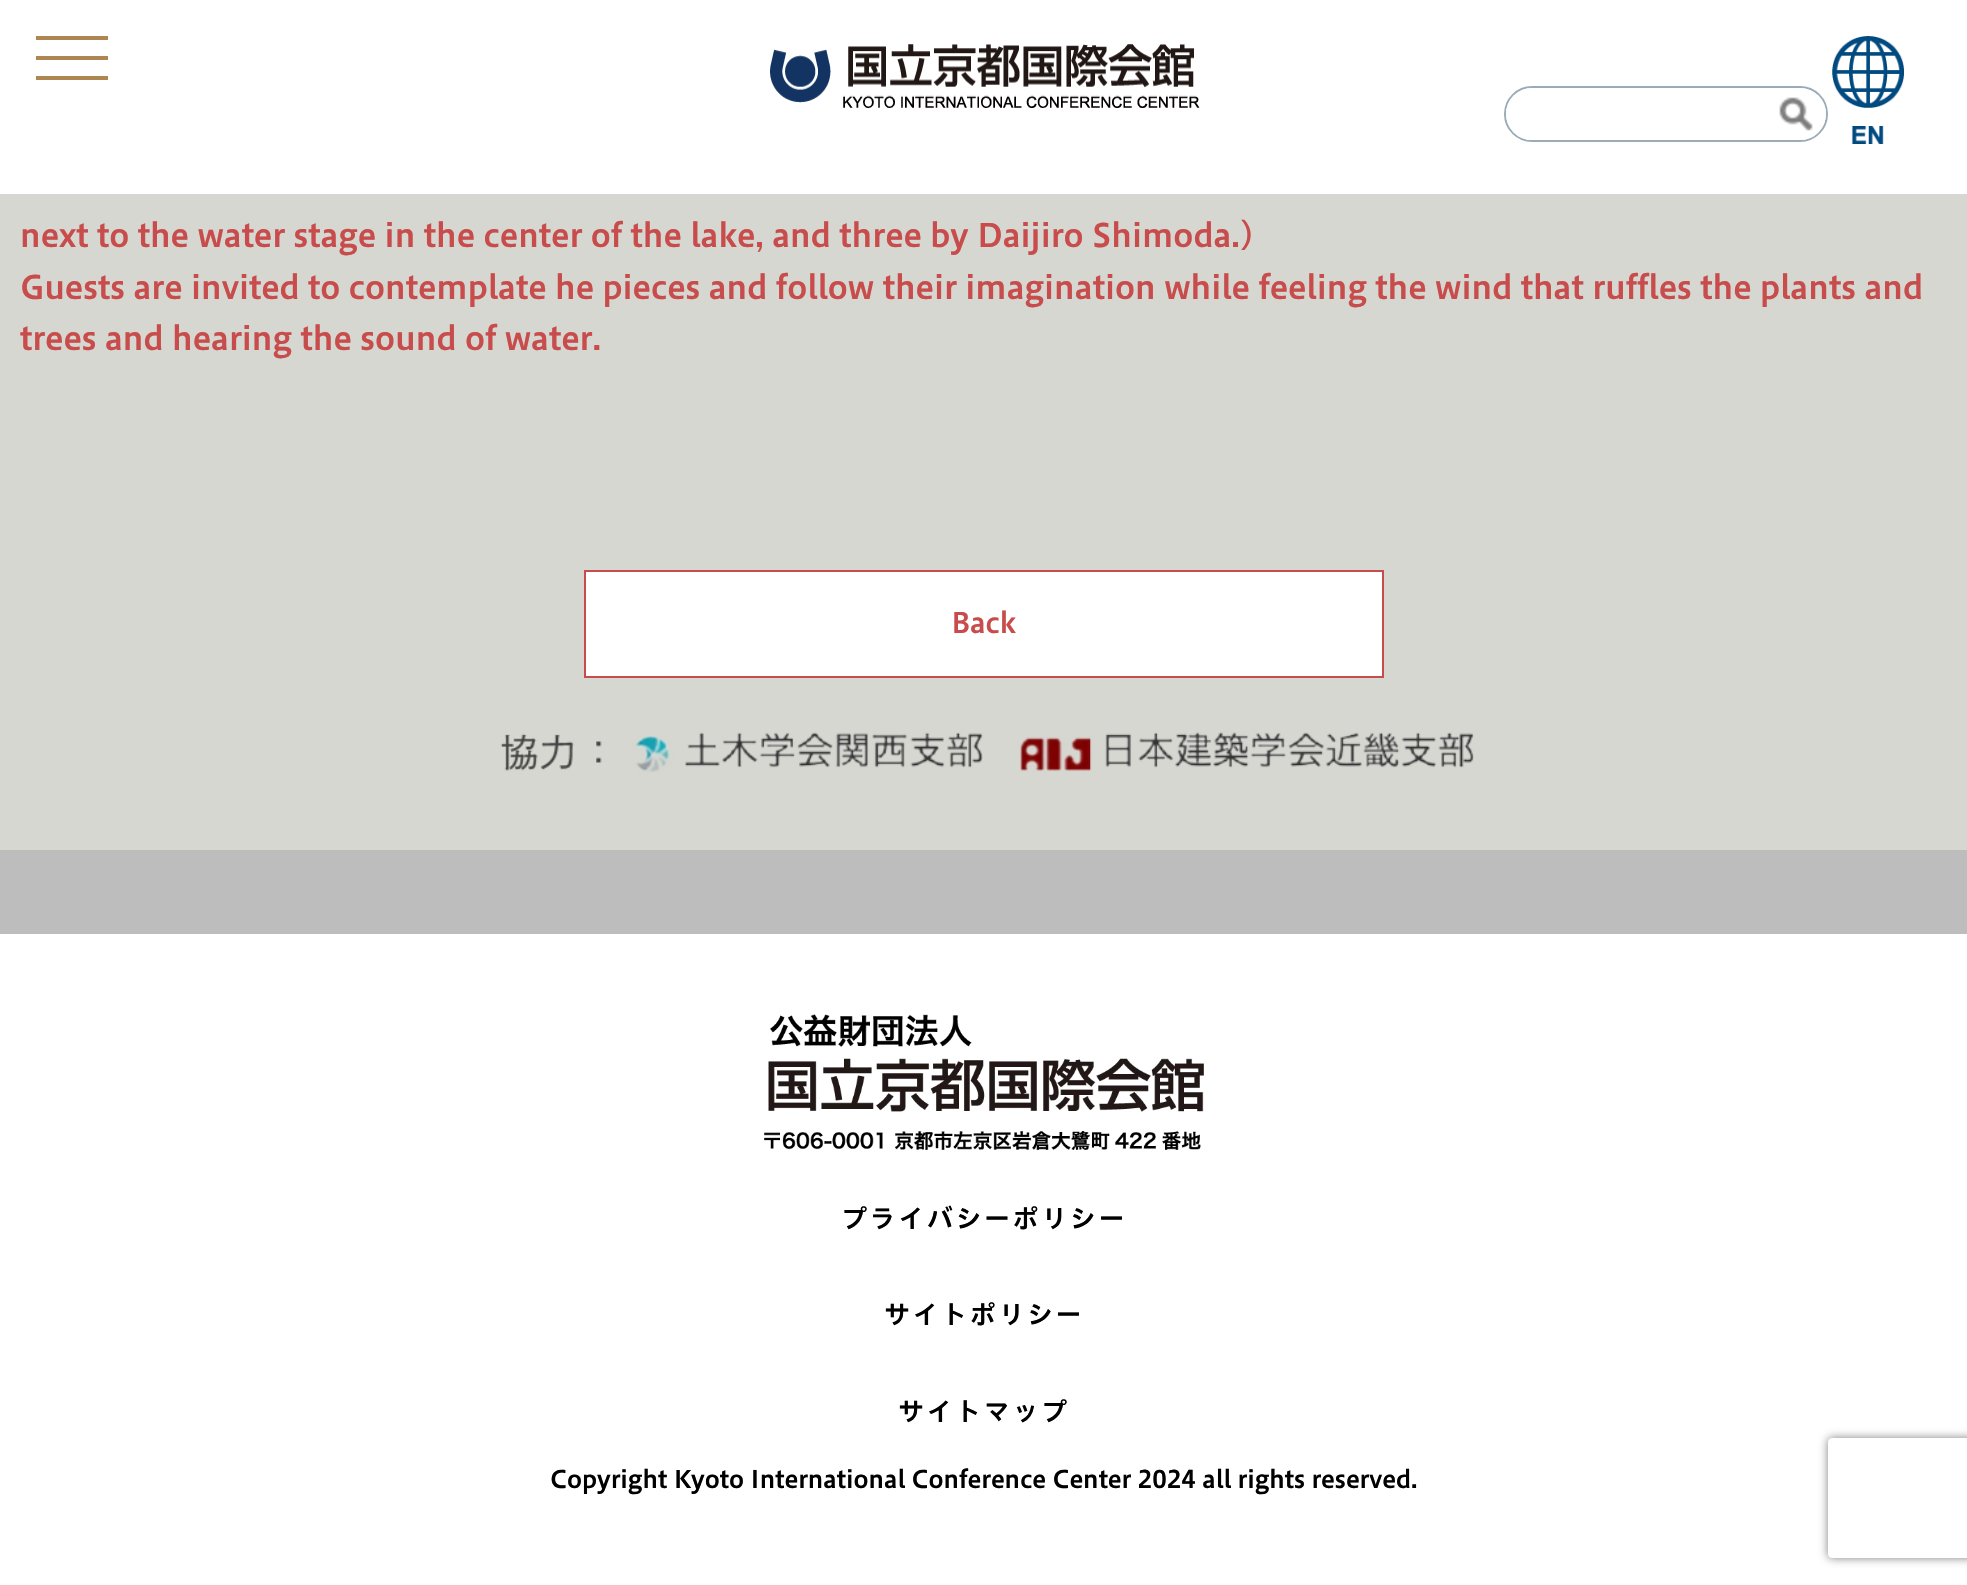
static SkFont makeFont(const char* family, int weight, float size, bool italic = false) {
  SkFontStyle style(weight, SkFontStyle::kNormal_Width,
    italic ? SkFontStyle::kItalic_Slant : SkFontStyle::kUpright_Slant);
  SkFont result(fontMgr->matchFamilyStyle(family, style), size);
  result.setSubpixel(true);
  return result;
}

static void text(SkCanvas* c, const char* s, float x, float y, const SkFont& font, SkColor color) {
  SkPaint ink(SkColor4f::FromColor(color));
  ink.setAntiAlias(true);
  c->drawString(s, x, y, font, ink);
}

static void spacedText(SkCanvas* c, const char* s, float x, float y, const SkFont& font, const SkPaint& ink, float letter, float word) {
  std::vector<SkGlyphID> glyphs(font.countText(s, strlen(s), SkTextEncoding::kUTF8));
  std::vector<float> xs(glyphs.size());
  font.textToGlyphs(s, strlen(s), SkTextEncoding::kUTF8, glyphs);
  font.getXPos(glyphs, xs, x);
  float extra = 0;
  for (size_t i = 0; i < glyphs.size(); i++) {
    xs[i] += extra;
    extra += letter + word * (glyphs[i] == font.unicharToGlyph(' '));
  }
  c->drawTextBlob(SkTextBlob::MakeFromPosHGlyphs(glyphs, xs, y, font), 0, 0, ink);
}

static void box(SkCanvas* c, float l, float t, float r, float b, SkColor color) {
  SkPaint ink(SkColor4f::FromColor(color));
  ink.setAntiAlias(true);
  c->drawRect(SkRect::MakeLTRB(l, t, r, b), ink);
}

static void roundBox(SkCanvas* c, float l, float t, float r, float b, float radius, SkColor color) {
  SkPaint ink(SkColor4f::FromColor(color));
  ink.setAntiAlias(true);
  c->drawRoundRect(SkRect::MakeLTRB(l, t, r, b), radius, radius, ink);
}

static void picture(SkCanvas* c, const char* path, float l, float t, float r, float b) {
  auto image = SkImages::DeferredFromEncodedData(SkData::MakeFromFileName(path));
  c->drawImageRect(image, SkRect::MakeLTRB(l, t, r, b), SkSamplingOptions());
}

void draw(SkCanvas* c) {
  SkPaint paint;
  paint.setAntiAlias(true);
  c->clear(0xffffffff);
  box(c, 36, 36, 108, 40, 0xffad8652);
  box(c, 36, 56, 108, 60, 0xffad8652);
  box(c, 36, 76, 108, 80, 0xffad8652);
  picture(c, "img_01.png", 770, 44, 1200, 108);
  picture(c, "img_02.png", 1832, 36, 1904, 144);
  paint.setStyle(SkPaint::kStroke_Style);
  paint.setStrokeWidth(2);
  paint.setColor(0xff9aacb8);
  c->drawRoundRect(SkRect::MakeLTRB(1505, 87, 1827, 141), 27, 27, paint);
  roundBox(c, 1506, 88, 1826, 140, 26, 0xffffffff);
  picture(c, "img_03.png", 1779, 97, 1813, 131);
  box(c, 0, 194, 1967, 850, 0xffd5d7d0);
  SkFont face1 = makeFont("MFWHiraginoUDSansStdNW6", 600, 32);
  text(c, "next to the water stage in the center of the lake, and three by Daijiro Shimoda.)", 20, 247, face1, 0xffc84c4c);
  text(c, "Guests are invited to contemplate he pieces and follow their imagination while feeling the wind that ruffles the plants and", 20, 299, face1, 0xffc84c4c);
  text(c, "trees and hearing the sound of water.", 20, 350, face1, 0xffc84c4c);
  paint.setStyle(SkPaint::kFill_Style);
  paint.setColor(0xffffffff);
  c->drawRect(SkRect::MakeLTRB(585, 571, 1383, 677), paint);
  paint.setStyle(SkPaint::kStroke_Style);
  paint.setColor(0xffc84c4c);
  c->drawRect(SkRect::MakeLTRB(585, 571, 1383, 677), paint);
  SkFont face2 = makeFont("MFWHiraginoUDSansStdNW6", 600, 28);
  text(c, "Back", 951, 633, face2, 0xffc84c4c);
  picture(c, "img_04.png", 500, 732, 1474, 772);
  box(c, 0, 850, 1967, 934, 0xffbdbdbd);
  picture(c, "img_05.png", 764, 1014, 1204, 1150);
  SkFont face3 = makeFont("MFWHiraginoUDSansStdNW6", 600, 26);
  paint.setStyle(SkPaint::kFill_Style);
  paint.setColor(0xff000000);
  spacedText(c, "プライバシーポリシー", 841, 1228, face3, paint, 2.6f, 0);
  spacedText(c, "サイトポリシー", 884, 1324, face3, paint, 2.6f, 0);
  spacedText(c, "サイトマップ", 898, 1421, face3, paint, 2.6f, 0);
  SkFont face4 = makeFont("MFWHiraginoUDSansStdNW6", 600, 24);
  text(c, "Copyright Kyoto International Conference Center 2024 all rights reserved.", 550, 1488, face4, 0xff000000);
  c->save();
  c->clipPath(SkPathBuilder(SkPathFillType::kEvenOdd).moveTo(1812, 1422).lineTo(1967, 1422).lineTo(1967, 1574).lineTo(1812, 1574).close().moveTo(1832, 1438).lineTo(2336, 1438).cubicTo(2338, 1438, 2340, 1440, 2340, 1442).lineTo(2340, 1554).cubicTo(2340, 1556, 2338, 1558, 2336, 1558).lineTo(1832, 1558).cubicTo(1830, 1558, 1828, 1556, 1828, 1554).lineTo(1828, 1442).cubicTo(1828, 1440, 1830, 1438, 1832, 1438).close().detach(), true);
  paint.setColor(0xff808080);
  paint.setMaskFilter(SkMaskFilter::MakeBlur(kNormal_SkBlurStyle, 5));
  c->drawRoundRect(SkRect::MakeLTRB(1828, 1438, 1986, 1558), 4, 4, paint);
  paint.setMaskFilter(nullptr);
  c->restore();
}
